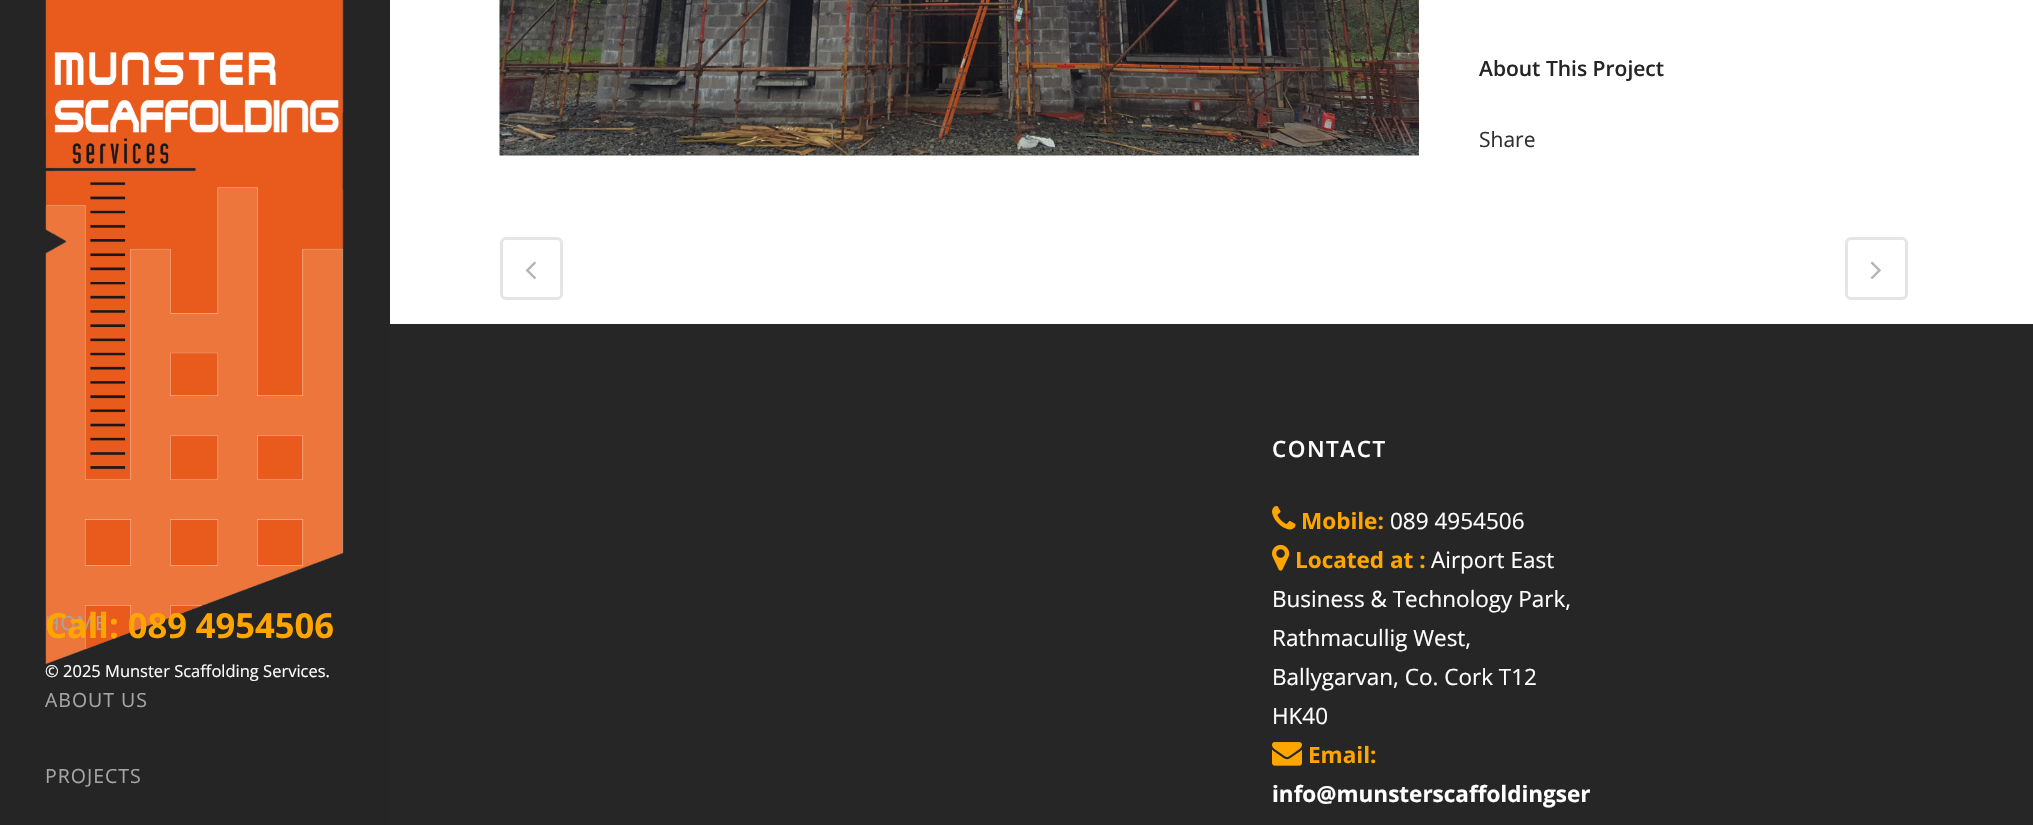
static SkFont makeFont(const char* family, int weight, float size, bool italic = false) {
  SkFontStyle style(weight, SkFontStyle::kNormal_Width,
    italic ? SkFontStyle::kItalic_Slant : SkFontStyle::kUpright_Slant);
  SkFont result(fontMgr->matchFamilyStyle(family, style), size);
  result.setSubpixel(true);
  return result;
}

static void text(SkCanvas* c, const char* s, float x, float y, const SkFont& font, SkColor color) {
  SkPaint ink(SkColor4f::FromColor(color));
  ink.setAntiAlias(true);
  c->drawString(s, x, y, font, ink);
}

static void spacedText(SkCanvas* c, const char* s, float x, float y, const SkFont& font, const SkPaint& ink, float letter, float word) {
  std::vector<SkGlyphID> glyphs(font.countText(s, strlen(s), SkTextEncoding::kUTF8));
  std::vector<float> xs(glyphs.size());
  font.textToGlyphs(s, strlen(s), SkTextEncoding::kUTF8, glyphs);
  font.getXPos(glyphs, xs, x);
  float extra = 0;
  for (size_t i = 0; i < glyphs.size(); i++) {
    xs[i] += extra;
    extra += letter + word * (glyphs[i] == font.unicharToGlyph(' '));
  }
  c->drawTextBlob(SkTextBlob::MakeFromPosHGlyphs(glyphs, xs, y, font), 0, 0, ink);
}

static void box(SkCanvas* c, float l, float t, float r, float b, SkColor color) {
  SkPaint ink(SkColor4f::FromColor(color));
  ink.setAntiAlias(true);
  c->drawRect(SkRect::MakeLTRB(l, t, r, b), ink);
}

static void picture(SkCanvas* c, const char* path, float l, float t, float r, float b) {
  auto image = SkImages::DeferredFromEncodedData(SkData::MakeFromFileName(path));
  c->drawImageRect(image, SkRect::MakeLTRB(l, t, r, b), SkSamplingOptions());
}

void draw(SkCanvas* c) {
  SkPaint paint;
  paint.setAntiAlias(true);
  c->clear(0xffffffff);
  picture(c, "img_01.png", 499, 0, 1419, 156);
  SkFont face1 = makeFont("Open Sans", 600, 21);
  text(c, "About This Project", 1479, 76, face1, 0xff252525);
  SkFont face2 = makeFont("Open Sans", 400, 21);
  text(c, "Share", 1479, 147, face2, 0xff303030);
  paint.setStyle(SkPaint::kStroke_Style);
  paint.setStrokeWidth(3);
  paint.setColor(0xffe5e5e5);
  c->drawRoundRect(SkRect::MakeLTRB(501.5f, 238.5f, 561.5f, 298.5f), 4.5f, 4.5f, paint);
  picture(c, "img_02.png", 525, 261, 536, 279);
  c->drawRoundRect(SkRect::MakeLTRB(1846.5f, 238.5f, 1906.5f, 298.5f), 4.5f, 4.5f, paint);
  picture(c, "img_03.png", 1870, 261, 1881, 279);
  box(c, 0, 0, 390, 825, 0xff252525);
  picture(c, "img_04.png", 45, 0, 344, 665);
  SkFont face3 = makeFont("Open Sans", 400, 19.5f);
  paint.setStyle(SkPaint::kFill_Style);
  paint.setColor(0xffa5a5a5);
  spacedText(c, "HOME", 45, 630, face3, paint, 1, 0);
  SkFont face4 = makeFont("Open Sans", 700, 34.5f);
  text(c, "Call: 089 4954506", 45, 638, face4, 0xffffa500);
  SkFont face5 = makeFont("Open Sans", 400, 16.5f);
  text(c, "© 2025 Munster Scaffolding Services.", 45, 677, face5, 0xffffffff);
  spacedText(c, "ABOUT US", 45, 707, face3, paint, 1, 0);
  spacedText(c, "PROJECTS", 45, 783, face3, paint, 1, 0);
  box(c, 390, 324, 2033, 825, 0xff262626);
  SkFont face6 = makeFont("Open Sans", 600, 22.5f);
  paint.setColor(0xffffffff);
  spacedText(c, "CONTACT", 1272, 457, face6, paint, 1.5f, 0);
  picture(c, "img_05.png", 1272, 506, 1296, 530);
  SkFont face7 = makeFont("Open Sans", 700, 22.5f);
  text(c, "Mobile:", 1301, 529, face7, 0xffffa500);
  SkFont face8 = makeFont("Open Sans", 400, 22.5f);
  text(c, "089 4954506", 1390, 529, face8, 0xffffffff);
  picture(c, "img_06.png", 1272, 544, 1290, 571);
  text(c, "Located at :", 1295, 568, face7, 0xffffa500);
  text(c, "Airport East", 1431, 568, face8, 0xffffffff);
  text(c, "Business & Technology Park,", 1272, 607, face8, 0xffffffff);
  text(c, "Rathmacullig West,", 1272, 646, face8, 0xffffffff);
  text(c, "Ballygarvan, Co. Cork T12", 1272, 685, face8, 0xffffffff);
  text(c, "HK40", 1272, 724, face8, 0xffffffff);
  picture(c, "img_07.png", 1272, 742, 1302, 766);
  text(c, "Email:", 1308, 763, face7, 0xffffa500);
  text(c, "info@munsterscaffoldingser", 1272, 802, face7, 0xffffffff);
}
